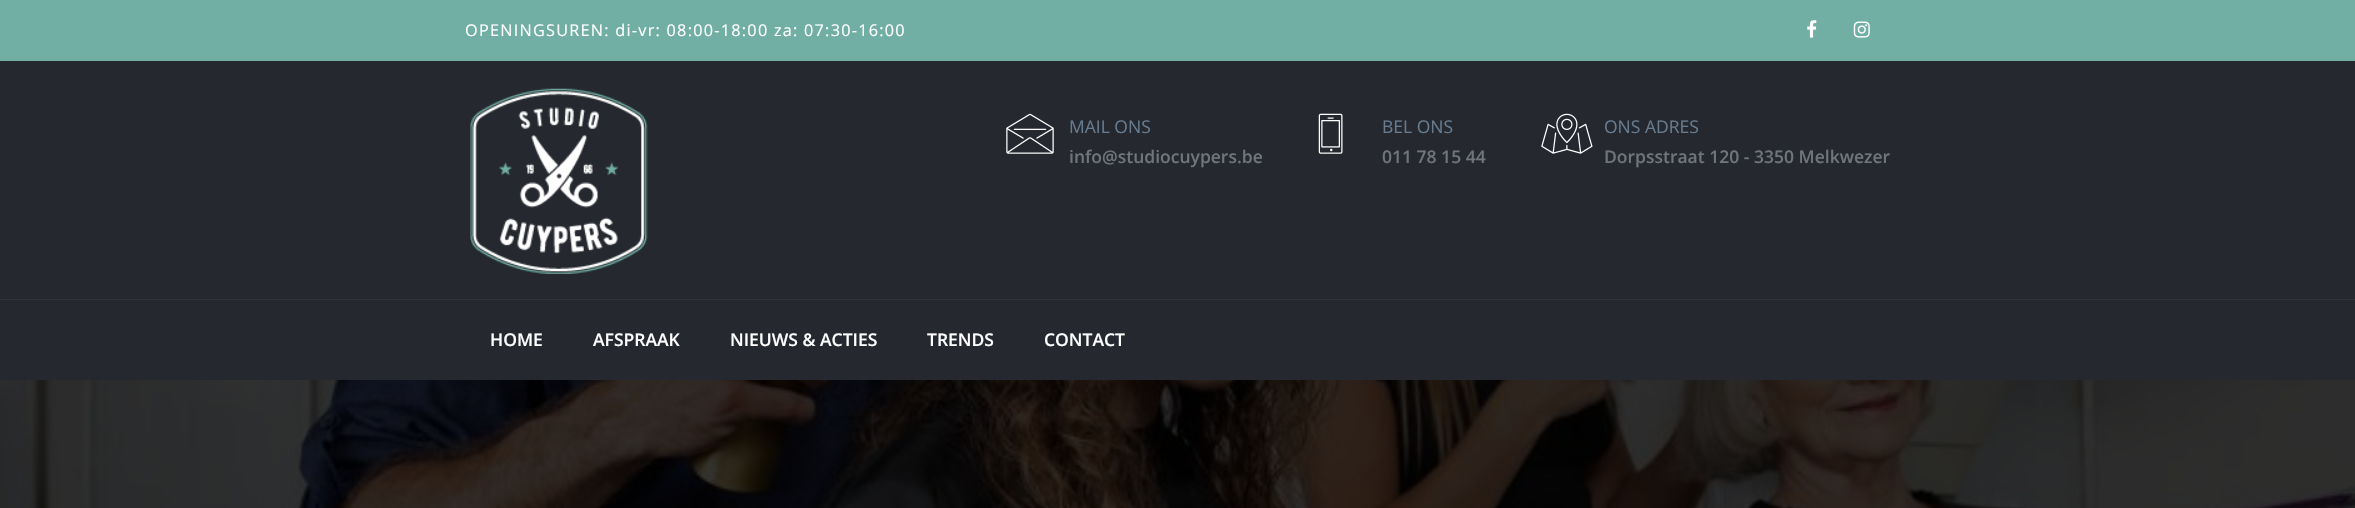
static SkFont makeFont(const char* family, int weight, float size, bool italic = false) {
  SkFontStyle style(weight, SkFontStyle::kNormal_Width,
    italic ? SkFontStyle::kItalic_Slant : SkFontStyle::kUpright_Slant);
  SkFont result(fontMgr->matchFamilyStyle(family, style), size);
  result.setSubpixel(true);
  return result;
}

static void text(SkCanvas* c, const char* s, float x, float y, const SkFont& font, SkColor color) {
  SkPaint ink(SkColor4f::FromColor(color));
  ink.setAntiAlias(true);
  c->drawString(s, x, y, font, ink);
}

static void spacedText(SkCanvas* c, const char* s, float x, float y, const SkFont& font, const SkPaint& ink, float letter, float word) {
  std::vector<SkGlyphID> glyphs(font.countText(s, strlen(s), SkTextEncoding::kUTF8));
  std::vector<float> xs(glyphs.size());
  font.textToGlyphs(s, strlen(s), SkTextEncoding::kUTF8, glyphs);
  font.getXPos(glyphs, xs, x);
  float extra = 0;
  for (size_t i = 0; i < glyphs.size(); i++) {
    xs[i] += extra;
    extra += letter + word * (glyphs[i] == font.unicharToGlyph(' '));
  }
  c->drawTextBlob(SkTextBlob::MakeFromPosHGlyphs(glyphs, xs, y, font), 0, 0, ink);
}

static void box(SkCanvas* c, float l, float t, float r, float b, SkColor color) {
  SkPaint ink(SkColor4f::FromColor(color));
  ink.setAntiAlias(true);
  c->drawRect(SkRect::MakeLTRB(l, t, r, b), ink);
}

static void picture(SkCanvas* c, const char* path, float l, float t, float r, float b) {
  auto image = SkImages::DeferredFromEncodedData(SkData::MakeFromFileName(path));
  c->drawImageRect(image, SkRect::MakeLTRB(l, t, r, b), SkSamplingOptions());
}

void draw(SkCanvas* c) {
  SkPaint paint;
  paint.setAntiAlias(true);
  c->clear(0xff71aea4);
  SkFont face1 = makeFont("Open Sans", 400, 16.25f);
  paint.setColor(0xffffffff);
  spacedText(c, "OPENINGSUREN: di-vr: 08:00-18:00 za: 07:30-16:00", 465, 36, face1, paint, 1.25f, 0);
  picture(c, "img_01.png", 1807, 20, 1817, 38);
  picture(c, "img_02.png", 1853, 21, 1870, 38);
  box(c, 0, 61, 2355, 380, 0xff25292f);
  picture(c, "img_03.png", 470, 88, 648, 274);
  picture(c, "img_04.png", 1006, 113, 1054, 154);
  SkFont face2 = makeFont("Open Sans", 400, 17.5f);
  text(c, "MAIL ONS", 1069, 133, face2, 0xff677c91);
  SkFont face3 = makeFont("Open Sans", 600, 17.5f);
  text(c, "info@studiocuypers.be", 1069, 163, face3, 0xff6f747d);
  picture(c, "img_05.png", 1318, 113, 1343, 154);
  text(c, "BEL ONS", 1382, 133, face2, 0xff677c91);
  text(c, "011 78 15 44", 1382, 163, face3, 0xff6f747d);
  picture(c, "img_06.png", 1541, 113, 1593, 154);
  text(c, "ONS ADRES", 1604, 133, face2, 0xff677c91);
  text(c, "Dorpsstraat 120 - 3350 Melkwezer", 1604, 163, face3, 0xff6f747d);
  box(c, 0, 299, 2355, 300, 0xff303439);
  text(c, "HOME", 490, 346, face3, 0xffffffff);
  text(c, "AFSPRAAK", 593, 346, face3, 0xffffffff);
  text(c, "NIEUWS & ACTIES", 730, 346, face3, 0xffffffff);
  text(c, "TRENDS", 927, 346, face3, 0xffffffff);
  text(c, "CONTACT", 1044, 346, face3, 0xffffffff);
  picture(c, "img_07.png", 0, 380, 2355, 508);
}
